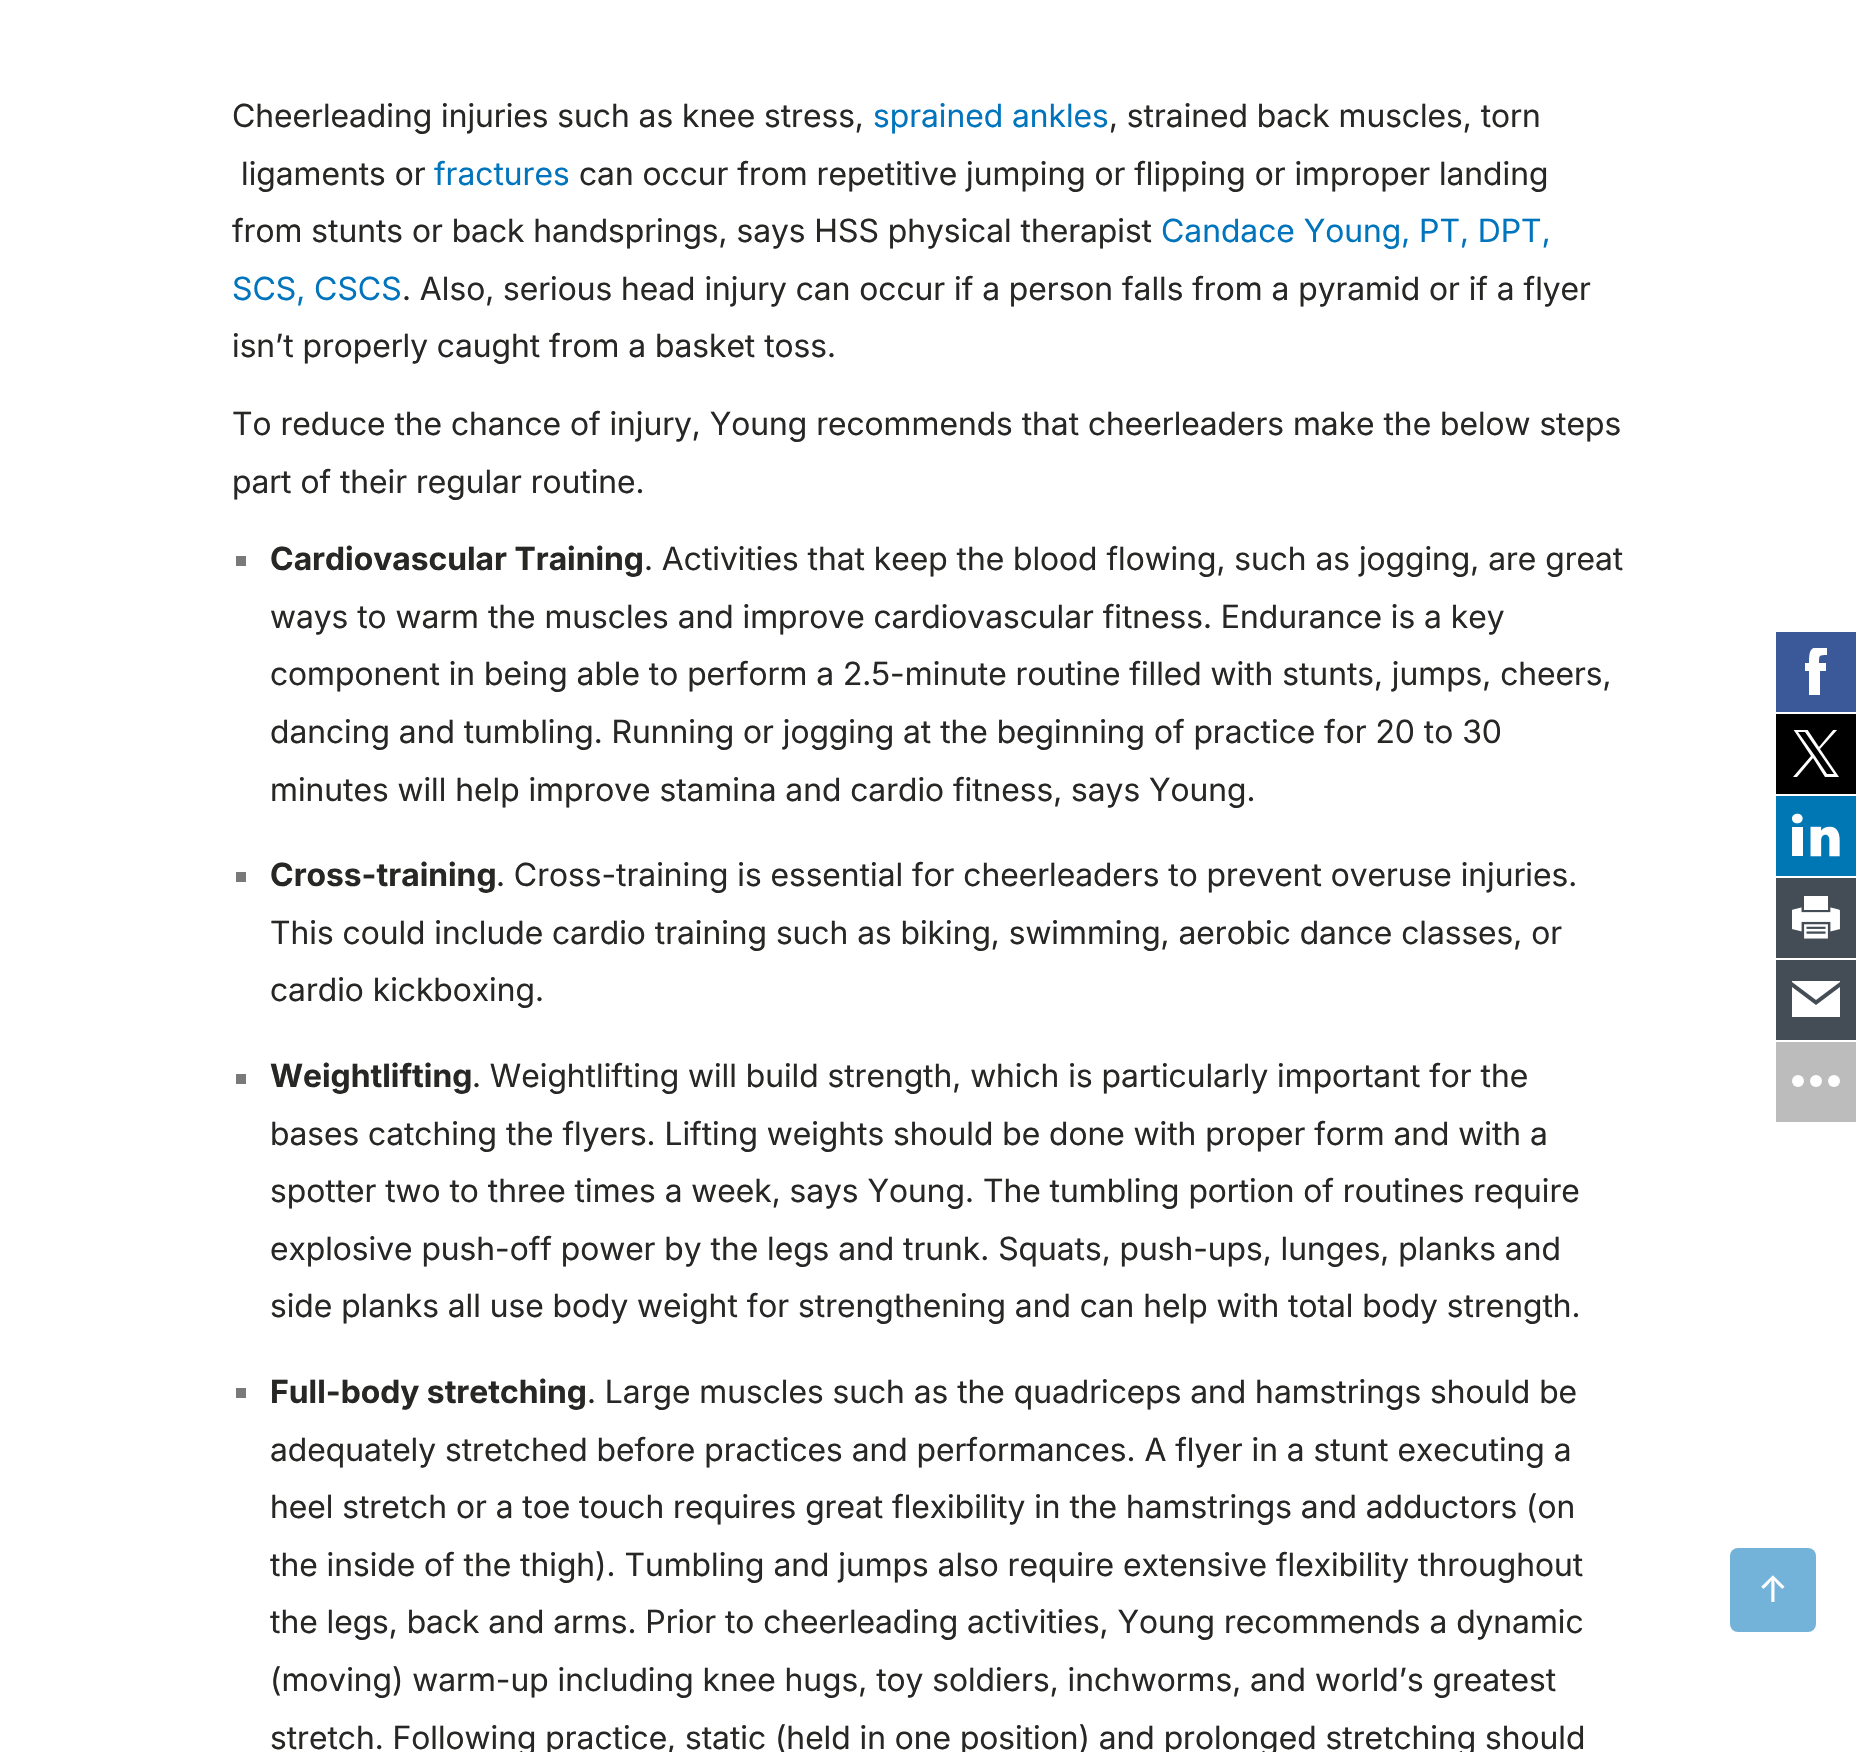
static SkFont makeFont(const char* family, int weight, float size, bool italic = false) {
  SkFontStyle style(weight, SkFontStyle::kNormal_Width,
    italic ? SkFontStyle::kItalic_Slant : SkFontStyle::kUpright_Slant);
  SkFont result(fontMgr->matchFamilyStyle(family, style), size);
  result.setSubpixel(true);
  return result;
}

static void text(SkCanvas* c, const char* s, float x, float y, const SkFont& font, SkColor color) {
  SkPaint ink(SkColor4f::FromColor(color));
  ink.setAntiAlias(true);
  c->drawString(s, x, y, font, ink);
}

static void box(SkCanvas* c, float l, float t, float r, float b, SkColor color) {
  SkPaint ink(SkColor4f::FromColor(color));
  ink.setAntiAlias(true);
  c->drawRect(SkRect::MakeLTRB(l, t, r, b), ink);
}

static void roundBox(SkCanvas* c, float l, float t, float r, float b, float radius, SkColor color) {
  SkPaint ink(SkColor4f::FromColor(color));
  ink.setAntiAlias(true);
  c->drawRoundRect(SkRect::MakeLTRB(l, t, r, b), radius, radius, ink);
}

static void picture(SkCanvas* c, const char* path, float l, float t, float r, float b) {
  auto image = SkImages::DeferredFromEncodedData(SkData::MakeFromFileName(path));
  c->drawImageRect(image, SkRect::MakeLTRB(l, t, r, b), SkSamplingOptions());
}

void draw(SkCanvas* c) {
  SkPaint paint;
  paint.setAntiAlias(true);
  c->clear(0xffffffff);
  SkFont face1 = makeFont("Inter", 400, 32);
  text(c, "Cheerleading injuries such as knee stress,", 232, 127, face1, 0xff272725);
  text(c, "sprained ankles", 873, 127, face1, 0xff0074bc);
  text(c, ", strained back muscles, torn", 1109, 127, face1, 0xff272725);
  text(c, "ligaments or", 241, 185, face1, 0xff272725);
  text(c, "fractures", 434, 185, face1, 0xff0074bc);
  text(c, "can occur from repetitive jumping or flipping or improper landing", 579, 185, face1, 0xff272725);
  text(c, "from stunts or back handsprings, says HSS physical therapist", 232, 242, face1, 0xff272725);
  text(c, "Candace Young, PT, DPT,", 1161, 242, face1, 0xff0074bc);
  text(c, "SCS, CSCS", 232, 300, face1, 0xff0074bc);
  text(c, ". Also, serious head injury can occur if a person falls from a pyramid or if a flyer", 402, 300, face1, 0xff272725);
  text(c, "isn’t properly caught from a basket toss.", 232, 357, face1, 0xff272725);
  text(c, "To reduce the chance of injury, Young recommends that cheerleaders make the below steps", 232, 435, face1, 0xff272725);
  text(c, "part of their regular routine.", 232, 493, face1, 0xff272725);
  box(c, 236, 556, 246, 566, 0xff797979);
  SkFont face2 = makeFont("Inter", 700, 32);
  text(c, "Cardiovascular Training", 270, 570, face2, 0xff272725);
  text(c, ". Activities that keep the blood flowing, such as jogging, are great", 644, 570, face1, 0xff272725);
  text(c, "ways to warm the muscles and improve cardiovascular fitness. Endurance is a key", 270, 628, face1, 0xff272725);
  text(c, "component in being able to perform a 2.5-minute routine filled with stunts, jumps, cheers,", 270, 685, face1, 0xff272725);
  text(c, "dancing and tumbling. Running or jogging at the beginning of practice for 20 to 30", 270, 743, face1, 0xff272725);
  text(c, "minutes will help improve stamina and cardio fitness, says Young.", 270, 801, face1, 0xff272725);
  box(c, 236, 872, 246, 882, 0xff797979);
  text(c, "Cross-training", 270, 886, face2, 0xff272725);
  text(c, ". Cross-training is essential for cheerleaders to prevent overuse injuries.", 496, 886, face1, 0xff272725);
  text(c, "This could include cardio training such as biking, swimming, aerobic dance classes, or", 270, 944, face1, 0xff272725);
  text(c, "cardio kickboxing.", 270, 1001, face1, 0xff272725);
  box(c, 236, 1074, 246, 1084, 0xff797979);
  text(c, "Weightlifting", 270, 1087, face2, 0xff272725);
  text(c, ". Weightlifting will build strength, which is particularly important for the", 472, 1087, face1, 0xff272725);
  text(c, "bases catching the flyers. Lifting weights should be done with proper form and with a", 270, 1145, face1, 0xff272725);
  text(c, "spotter two to three times a week, says Young. The tumbling portion of routines require", 270, 1202, face1, 0xff272725);
  text(c, "explosive push-off power by the legs and trunk. Squats, push-ups, lunges, planks and", 270, 1260, face1, 0xff272725);
  text(c, "side planks all use body weight for strengthening and can help with total body strength.", 270, 1317, face1, 0xff272725);
  box(c, 236, 1388, 246, 1398, 0xff797979);
  text(c, "Full-body stretching", 270, 1403, face2, 0xff272725);
  text(c, ". Large muscles such as the quadriceps and hamstrings should be", 587, 1403, face1, 0xff272725);
  text(c, "adequately stretched before practices and performances. A flyer in a stunt executing a", 270, 1461, face1, 0xff272725);
  text(c, "heel stretch or a toe touch requires great flexibility in the hamstrings and adductors (on", 270, 1518, face1, 0xff272725);
  text(c, "the inside of the thigh). Tumbling and jumps also require extensive flexibility throughout", 270, 1576, face1, 0xff272725);
  text(c, "the legs, back and arms. Prior to cheerleading activities, Young recommends a dynamic", 270, 1633, face1, 0xff272725);
  text(c, "(moving) warm-up including knee hugs, toy soldiers, inchworms, and world’s greatest", 270, 1691, face1, 0xff272725);
  text(c, "stretch. Following practice, static (held in one position) and prolonged stretching should", 270, 1749, face1, 0xff272725);
  box(c, 1776, 632, 1856, 712, 0xff3b5998);
  c->save();
  c->clipRect(SkRect::MakeLTRB(1792, 648, 1840, 696));
  paint.setColor(0xffffffff);
  c->drawPath(SkPathBuilder().moveTo(1827, 655).cubicTo(1819, 655, 1819, 655, 1819, 663).lineTo(1826, 663).lineTo(1826, 671).lineTo(1820, 671).lineTo(1820, 695).lineTo(1809, 695).lineTo(1809, 671).lineTo(1805, 671).lineTo(1805, 663).lineTo(1809, 663).cubicTo(1809, 646, 1812, 647, 1827, 647).close().detach(), paint);
  c->restore();
  box(c, 1776, 714, 1856, 794, 0xff000000);
  c->save();
  c->clipRect(SkRect::MakeLTRB(1792, 730, 1840, 778));
  c->drawPath(SkPathBuilder().moveTo(1820, 749).lineTo(1838, 729).lineTo(1834, 729).lineTo(1819, 747).lineTo(1807, 729).lineTo(1793, 729).lineTo(1811, 756).lineTo(1793, 777).lineTo(1797, 777).lineTo(1813, 758).lineTo(1825, 777).lineTo(1839, 777).close().moveTo(1815, 756).lineTo(1798, 732).lineTo(1805, 732).lineTo(1834, 774).lineTo(1827, 774).close().detach(), paint);
  c->restore();
  box(c, 1776, 796, 1856, 876, 0xff0077b5);
  picture(c, "img_01.png", 1792, 813, 1840, 857);
  box(c, 1776, 878, 1856, 958, 0xff444d55);
  picture(c, "img_02.png", 1792, 896, 1840, 939);
  box(c, 1776, 960, 1856, 1040, 0xff444d55);
  c->drawPath(SkPathBuilder().moveTo(1816, 1005).lineTo(1792, 987).lineTo(1792, 1017).lineTo(1840, 1017).lineTo(1840, 987).close().detach(), paint);
  c->drawPath(SkPathBuilder().moveTo(1816, 1000).lineTo(1840, 982).lineTo(1840, 981).lineTo(1792, 981).lineTo(1792, 982).close().detach(), paint);
  box(c, 1776, 1042, 1856, 1122, 0xffbcbcbc);
  c->drawCircle(1798, 1081, 6, paint);
  c->drawCircle(1816, 1081, 6, paint);
  c->drawCircle(1834, 1081, 6, paint);
  roundBox(c, 1730, 1548, 1816, 1632, 8, 0xff73b3da);
  SkFont face3 = makeFont("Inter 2", 400, 36);
  text(c, "↑", 1758, 1602, face3, 0xffffffff);
}
